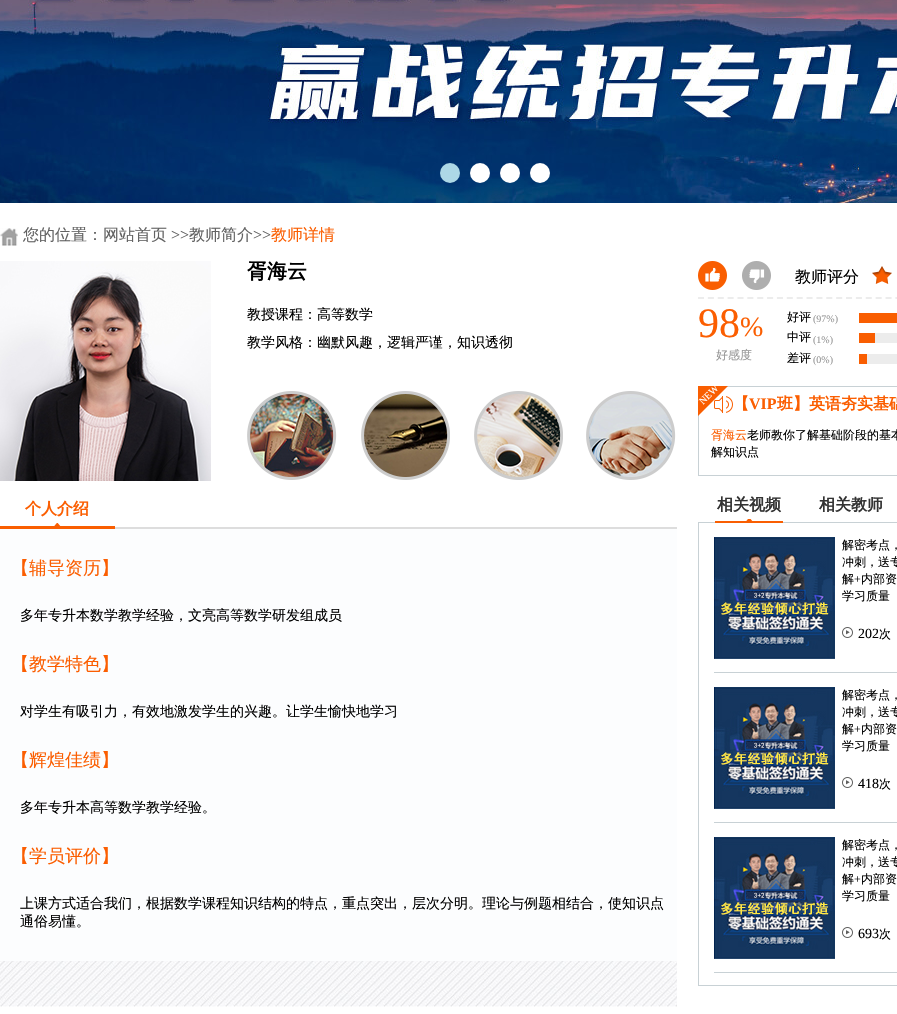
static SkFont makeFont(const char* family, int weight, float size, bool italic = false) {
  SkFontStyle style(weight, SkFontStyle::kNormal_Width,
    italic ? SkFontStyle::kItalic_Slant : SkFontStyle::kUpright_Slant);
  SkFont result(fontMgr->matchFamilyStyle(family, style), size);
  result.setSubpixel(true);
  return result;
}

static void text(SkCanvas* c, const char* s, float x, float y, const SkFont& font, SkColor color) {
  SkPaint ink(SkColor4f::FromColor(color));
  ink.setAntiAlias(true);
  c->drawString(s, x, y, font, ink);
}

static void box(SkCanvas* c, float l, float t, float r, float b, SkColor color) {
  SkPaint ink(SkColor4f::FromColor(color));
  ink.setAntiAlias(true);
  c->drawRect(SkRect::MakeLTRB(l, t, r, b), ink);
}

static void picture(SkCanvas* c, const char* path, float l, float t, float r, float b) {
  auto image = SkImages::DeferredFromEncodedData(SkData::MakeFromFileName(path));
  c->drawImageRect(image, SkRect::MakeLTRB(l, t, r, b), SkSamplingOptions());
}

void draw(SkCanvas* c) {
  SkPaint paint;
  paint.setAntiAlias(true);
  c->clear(0xffffffff);
  picture(c, "img_01.png", 0, 0, 897, 203);
  paint.setColor(0xffadd8e6);
  c->drawCircle(450, 173, 10, paint);
  paint.setColor(0xffffffff);
  c->drawCircle(480, 173, 10, paint);
  c->drawCircle(510, 173, 10, paint);
  c->drawCircle(540, 173, 10, paint);
  picture(c, "img_02.png", 0, 228, 18, 246);
  SkFont face1 = makeFont("WenQuanYi Zen Hei", 500, 16);
  text(c, "您的位置：网站首页", 23, 240, face1, 0xff626262);
  SkFont face2 = makeFont("Liberation Serif", 400, 16);
  text(c, ">>", 171, 240, face2, 0xff626262);
  text(c, "教师简介", 189, 240, face1, 0xff626262);
  text(c, ">>", 253, 240, face2, 0xff626262);
  text(c, "教师详情", 271, 240, face1, 0xfffb5e01);
  picture(c, "img_03.png", 0, 261, 211, 481);
  SkFont face3 = makeFont("WenQuanYi Zen Hei", 700, 20);
  text(c, "胥海云", 247, 278, face3, 0xff000000);
  SkFont face4 = makeFont("WenQuanYi Zen Hei", 500, 14);
  text(c, "教授课程：高等数学", 247, 319, face4, 0xff000000);
  text(c, "教学风格：幽默风趣，逻辑严谨，知识透彻", 247, 347, face4, 0xff000000);
  picture(c, "img_04.png", 247, 391, 337, 480);
  picture(c, "img_05.png", 361, 391, 450, 480);
  picture(c, "img_06.png", 474, 391, 563, 480);
  picture(c, "img_07.png", 586, 391, 676, 480);
  box(c, 115, 527, 677, 529, 0xffdddddd);
  SkFont face5 = makeFont("WenQuanYi Zen Hei", 700, 16);
  text(c, "个人介绍", 25, 514, face5, 0xfffb5e01);
  picture(c, "img_08.png", 0, 523, 115, 529);
  box(c, 0, 529, 677, 961, 0xfffcfdfe);
  SkFont face6 = makeFont("WenQuanYi Zen Hei", 500, 18);
  text(c, "【辅导资历】", 11, 574, face6, 0xfffb5e01);
  text(c, "多年专升本数学教学经验，文亮高等数学研发组成员", 20, 620, face4, 0xff000000);
  text(c, "【教学特色】", 11, 670, face6, 0xfffb5e01);
  text(c, "对学生有吸引力，有效地激发学生的兴趣。让学生愉快地学习", 20, 716, face4, 0xff000000);
  text(c, "【辉煌佳绩】", 11, 766, face6, 0xfffb5e01);
  text(c, "多年专升本高等数学教学经验。", 20, 812, face4, 0xff000000);
  text(c, "【学员评价】", 11, 862, face6, 0xfffb5e01);
  text(c, "上课方式适合我们，根据数学课程知识结构的特点，重点突出，层次分明。理论与例题相结合，使知识点", 20, 908, face4, 0xff000000);
  text(c, "通俗易懂。", 20, 926, face4, 0xff000000);
  picture(c, "img_09.png", 0, 961, 677, 1007);
  paint.setStyle(SkPaint::kStroke_Style);
  paint.setStrokeWidth(2);
  paint.setColor(0xffececec);
  paint.setPathEffect(SkDashPathEffect::Make({{6, 3.87f}}, 0));
  c->drawPath(SkPathBuilder().moveTo(698, 298).lineTo(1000, 298).detach(), paint);
  paint.setPathEffect(nullptr);
  picture(c, "img_10.png", 698, 261, 727, 290);
  picture(c, "img_11.png", 742, 261, 771, 290);
  text(c, "教师评分", 795, 282, face1, 0xff000000);
  picture(c, "img_12.png", 872, 266, 892, 284);
  SkFont face7 = makeFont("Liberation Serif", 400, 42);
  text(c, "98", 698, 337, face7, 0xfffb5e01);
  SkFont face8 = makeFont("Liberation Serif", 400, 28);
  text(c, "%", 740, 336, face8, 0xfffb5e01);
  SkFont face9 = makeFont("WenQuanYi Zen Hei", 500, 12);
  text(c, "好感度", 716, 359, face9, 0xff969696);
  text(c, "好评", 787, 321, face9, 0xff000000);
  SkFont face10 = makeFont("Liberation Serif", 400, 10);
  text(c, "(97%)", 813, 322, face10, 0xff969696);
  box(c, 859, 313, 897, 323, 0xfff95e01);
  text(c, "中评", 787, 341, face9, 0xff000000);
  text(c, "(1%)", 813, 343, face10, 0xff969696);
  box(c, 875, 333, 897, 343, 0xffececec);
  box(c, 859, 333, 875, 343, 0xfff95e01);
  text(c, "差评", 787, 362, face9, 0xff000000);
  text(c, "(0%)", 813, 363, face10, 0xff969696);
  box(c, 867, 354, 897, 364, 0xffececec);
  box(c, 859, 354, 867, 364, 0xfff95e01);
  paint.setStrokeWidth(1);
  paint.setColor(0xffc8d1d5);
  c->drawRect(SkRect::MakeLTRB(698.5f, 386.5f, 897.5f, 475.5f), paint);
  picture(c, "img_13.png", 714, 396, 733, 413);
  paint.setStyle(SkPaint::kFill_Style);
  paint.setColor(0xfff95e01);
  c->drawPath(SkPathBuilder().moveTo(698, 386).lineTo(728, 386).lineTo(698, 416).close().detach(), paint);
  c->save();
  c->rotate(-45, 703, 405);
  text(c, "NEW", 703, 405, face10, 0xffffffff);
  c->restore();
  text(c, "【", 733, 409, face5, 0xfffb5e01);
  SkFont face11 = makeFont("Liberation Serif", 700, 16);
  text(c, "VIP", 749, 409, face11, 0xfffb5e01);
  text(c, "班】英语夯实基础", 777, 409, face5, 0xfffb5e01);
  text(c, "胥海云", 711, 439, face9, 0xfffb5e01);
  text(c, "老师教你了解基础阶段的基本", 747, 439, face9, 0xff000000);
  text(c, "解知识点", 711, 456, face9, 0xff000000);
  text(c, "相关视频", 717, 510, face5, 0xff333333);
  text(c, "相关教师", 819, 510, face5, 0xff333333);
  paint.setStyle(SkPaint::kStroke_Style);
  paint.setColor(0xffc8d1d5);
  c->drawRect(SkRect::MakeLTRB(698.5f, 522.5f, 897.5f, 985.5f), paint);
  picture(c, "img_14.png", 715, 519, 783, 523);
  box(c, 714, 672, 897, 673, 0xffc8d1d5);
  picture(c, "img_15.png", 714, 537, 835, 659);
  text(c, "解密考点，", 842, 549, face9, 0xff000000);
  text(c, "冲刺，送专", 842, 566, face9, 0xff000000);
  text(c, "解", 842, 583, face9, 0xff000000);
  SkFont face12 = makeFont("Liberation Serif", 400, 12);
  text(c, "+", 854, 583, face12, 0xff000000);
  text(c, "内部资", 861, 583, face9, 0xff000000);
  text(c, "学习质量", 842, 600, face9, 0xff000000);
  picture(c, "img_16.png", 842, 627, 853, 638);
  SkFont face13 = makeFont("Liberation Serif", 400, 14);
  text(c, "202", 858, 638, face13, 0xff000000);
  text(c, "次", 879, 638, face9, 0xff000000);
  box(c, 714, 822, 897, 823, 0xffc8d1d5);
  picture(c, "img_15.png", 714, 687, 835, 809);
  text(c, "解密考点，", 842, 699, face9, 0xff000000);
  text(c, "冲刺，送专", 842, 716, face9, 0xff000000);
  text(c, "解", 842, 733, face9, 0xff000000);
  text(c, "+", 854, 733, face12, 0xff000000);
  text(c, "内部资", 861, 733, face9, 0xff000000);
  text(c, "学习质量", 842, 750, face9, 0xff000000);
  picture(c, "img_16.png", 842, 777, 853, 788);
  text(c, "418", 858, 788, face13, 0xff000000);
  text(c, "次", 879, 788, face9, 0xff000000);
  box(c, 714, 972, 897, 973, 0xffc8d1d5);
  picture(c, "img_15.png", 714, 837, 835, 959);
  text(c, "解密考点，", 842, 849, face9, 0xff000000);
  text(c, "冲刺，送专", 842, 866, face9, 0xff000000);
  text(c, "解", 842, 883, face9, 0xff000000);
  text(c, "+", 854, 883, face12, 0xff000000);
  text(c, "内部资", 861, 883, face9, 0xff000000);
  text(c, "学习质量", 842, 900, face9, 0xff000000);
  picture(c, "img_16.png", 842, 927, 853, 938);
  text(c, "693", 858, 938, face13, 0xff000000);
  text(c, "次", 879, 938, face9, 0xff000000);
}
